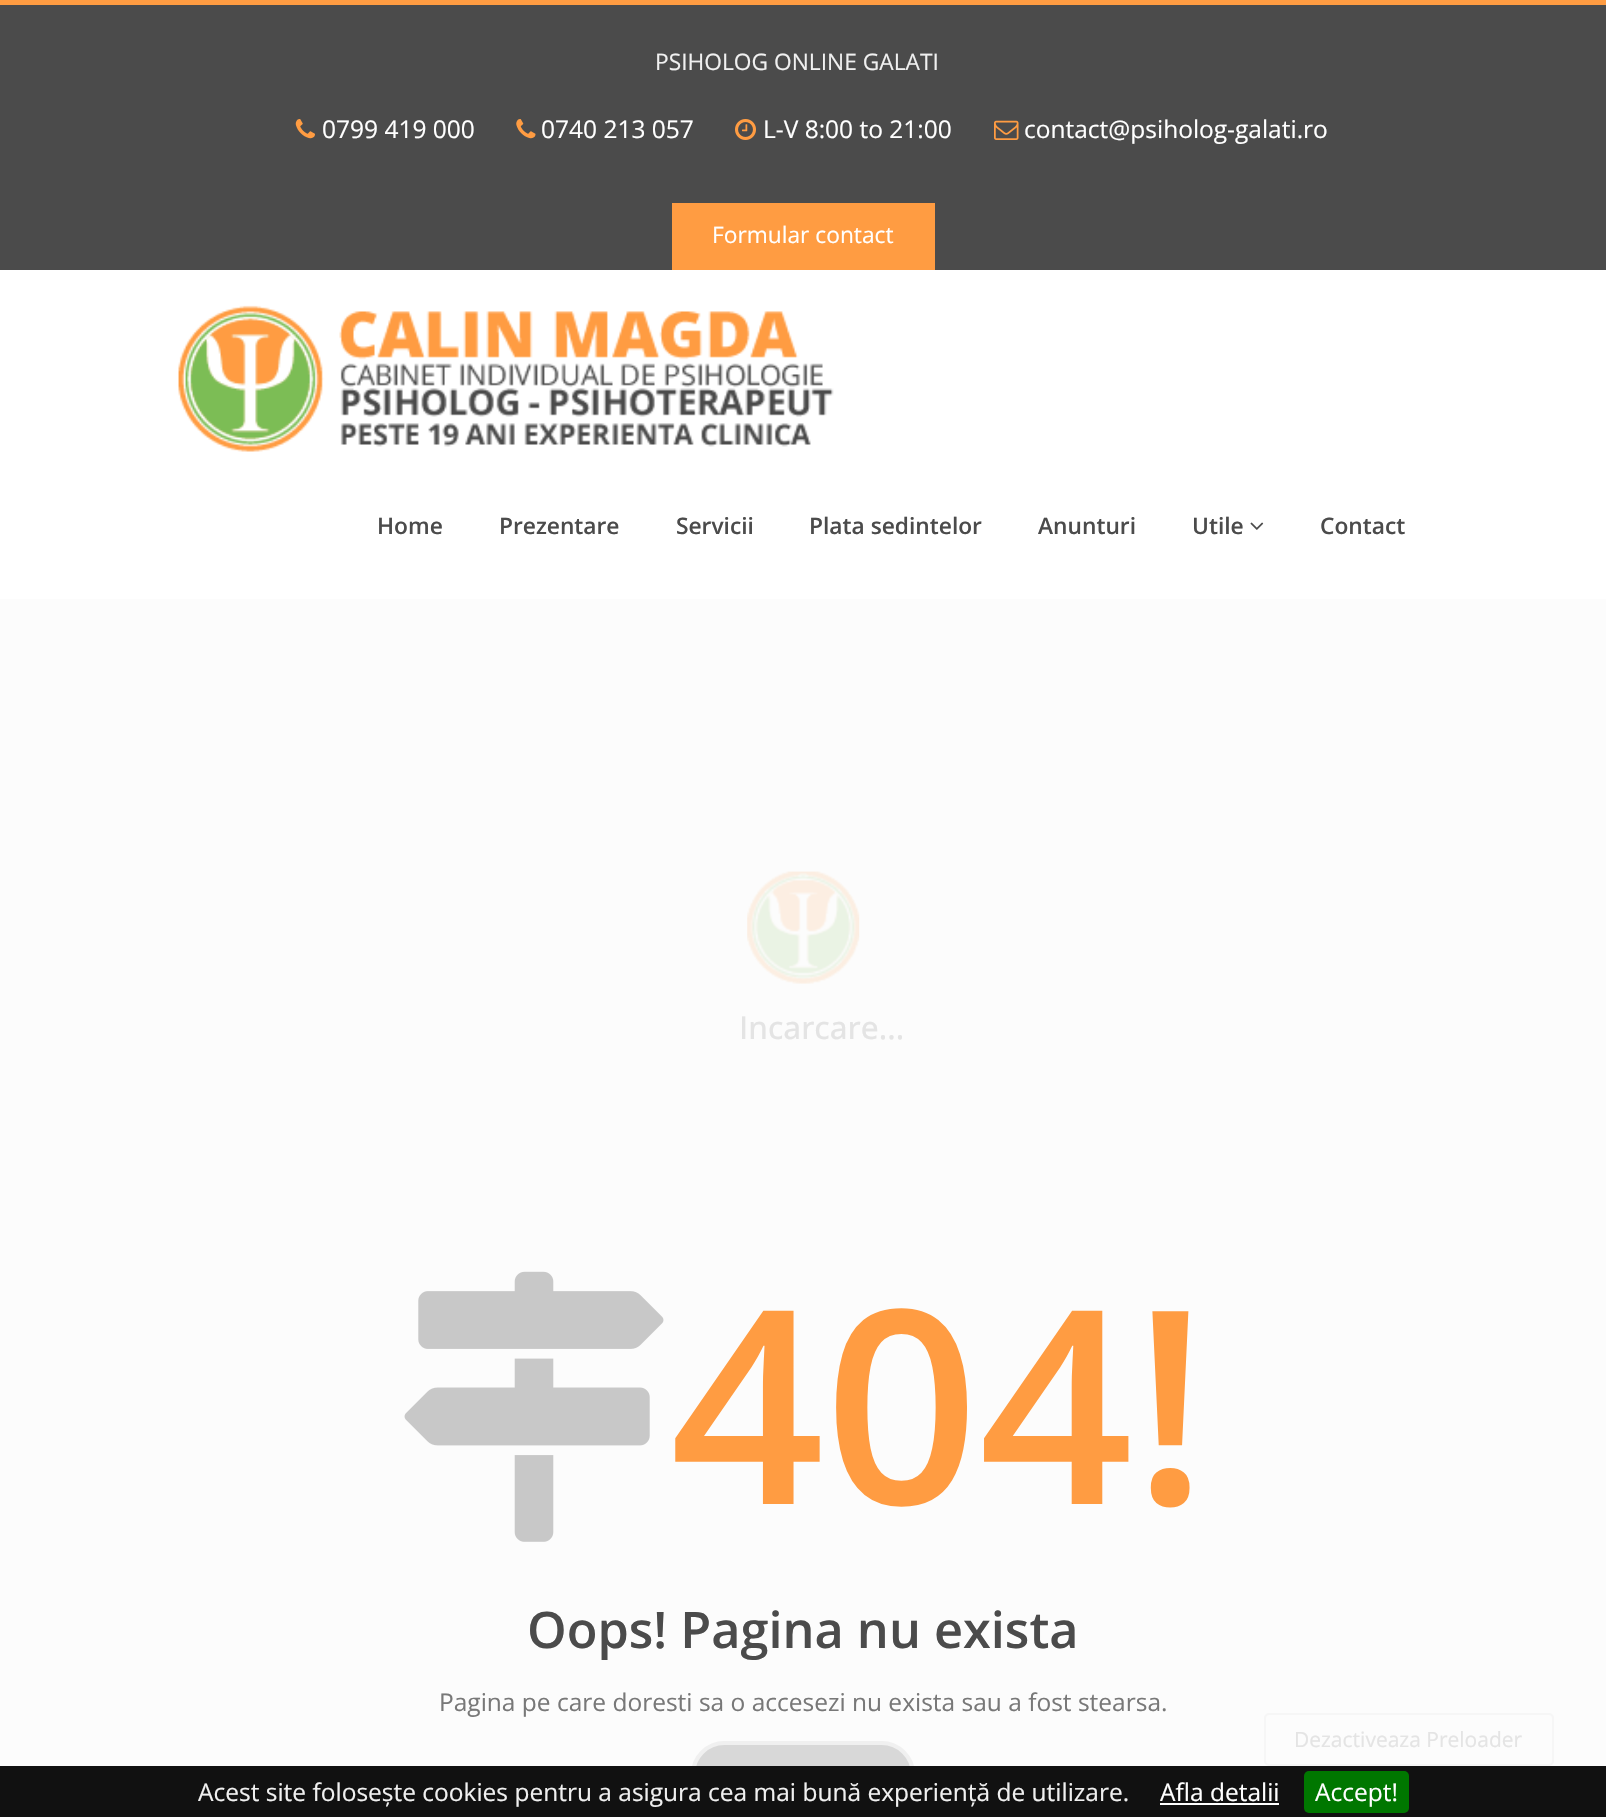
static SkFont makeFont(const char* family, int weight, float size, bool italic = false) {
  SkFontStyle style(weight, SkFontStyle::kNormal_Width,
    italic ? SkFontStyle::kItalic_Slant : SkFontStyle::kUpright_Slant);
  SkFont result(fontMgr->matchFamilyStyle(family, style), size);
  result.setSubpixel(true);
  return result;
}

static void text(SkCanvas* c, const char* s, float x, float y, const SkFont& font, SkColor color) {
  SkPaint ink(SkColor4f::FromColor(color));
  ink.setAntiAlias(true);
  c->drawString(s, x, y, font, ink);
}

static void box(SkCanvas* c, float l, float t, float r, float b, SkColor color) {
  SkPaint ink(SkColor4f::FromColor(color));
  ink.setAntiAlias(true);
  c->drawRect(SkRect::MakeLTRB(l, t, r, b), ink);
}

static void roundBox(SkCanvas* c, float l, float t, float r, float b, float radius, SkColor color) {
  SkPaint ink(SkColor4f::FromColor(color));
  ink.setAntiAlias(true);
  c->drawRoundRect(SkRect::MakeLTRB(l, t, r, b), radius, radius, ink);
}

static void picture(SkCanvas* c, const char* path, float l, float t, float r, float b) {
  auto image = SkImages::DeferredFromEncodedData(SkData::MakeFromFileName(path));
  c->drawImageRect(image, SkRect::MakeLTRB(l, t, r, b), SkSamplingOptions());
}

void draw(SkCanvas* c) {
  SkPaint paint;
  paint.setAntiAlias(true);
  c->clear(0xffffffff);
  box(c, 0, 5, 1606, 270, 0xff4b4b4b);
  box(c, 0, 0, 1606, 5, 0xffff9c42);
  SkFont face1 = makeFont("Open Sans", 400, 22.75f);
  text(c, "PSIHOLOG ONLINE GALATI", 655, 70, face1, 0xfff0f0f0);
  picture(c, "img_01.png", 295, 119, 315, 139);
  SkFont face2 = makeFont("Open Sans", 400, 24.5f);
  text(c, "0799 419 000", 322, 138, face2, 0xffffffff);
  picture(c, "img_02.png", 516, 119, 536, 139);
  text(c, "0740 213 057", 541, 138, face2, 0xffffffff);
  picture(c, "img_03.png", 735, 119, 756, 140);
  text(c, "L-V 8:00 to 21:00", 763, 138, face2, 0xffffffff);
  picture(c, "img_04.png", 994, 120, 1019, 140);
  text(c, "contact@psiholog-galati.ro", 1024, 138, face2, 0xffffffff);
  box(c, 672, 203, 935, 270, 0xffff9c42);
  text(c, "Formular contact", 712, 243, face1, 0xffffffff);
  picture(c, "img_05.png", 178, 305, 834, 452);
  SkFont face3 = makeFont("Open Sans", 600, 22.75f);
  text(c, "Home", 377, 534, face3, 0xff4b4b4b);
  text(c, "Prezentare", 499, 534, face3, 0xff4b4b4b);
  text(c, "Servicii", 676, 534, face3, 0xff4b4b4b);
  text(c, "Plata sedintelor", 809, 534, face3, 0xff4b4b4b);
  text(c, "Anunturi", 1038, 534, face3, 0xff4b4b4b);
  text(c, "Utile", 1192, 534, face3, 0xff4b4b4b);
  picture(c, "img_06.png", 1250, 522, 1264, 530);
  text(c, "Contact", 1320, 534, face3, 0xff4b4b4b);
  box(c, 0, 599, 1606, 1766, 0xfffcfcfc);
  picture(c, "img_07.png", 747, 871, 860, 984);
  SkFont face4 = makeFont("Open Sans", 500, 31.5f);
  text(c, "Incarcare...", 739, 1039, face4, 0xffe4e4e4);
  paint.setStyle(SkPaint::kStroke_Style);
  paint.setStrokeWidth(2);
  paint.setColor(0xfff6f6f6);
  c->drawRoundRect(SkRect::MakeLTRB(1265, 1714, 1553, 1765), 4, 4, paint);
  SkFont face5 = makeFont("Open Sans", 400, 21);
  text(c, "Dezactiveaza Preloader", 1294, 1747, face5, 0xffe4e4e4);
  picture(c, "img_08.png", 404, 1271, 664, 1542);
  SkFont face6 = makeFont("Open Sans", 600, 270);
  text(c, "404!", 670, 1504, face6, 0xffff9c42);
  SkFont face7 = makeFont("Open Sans", 600, 50.4f);
  text(c, "Oops! Pagina nu exista", 527, 1648, face7, 0xff4b4b4b);
  text(c, "Pagina pe care doresti sa o accesezi nu exista sau a fost stearsa.", 439, 1711, face2, 0xff787878);
  paint.setStyle(SkPaint::kFill_Style);
  paint.setColor(0xffd8d8d8);
  c->drawRoundRect(SkRect::MakeLTRB(693, 1743, 913, 1806), 31.5f, 31.5f, paint);
  paint.setStyle(SkPaint::kStroke_Style);
  paint.setStrokeWidth(4);
  paint.setColor(0xfff0f0f0);
  c->drawRoundRect(SkRect::MakeLTRB(693, 1743, 913, 1806), 31.5f, 31.5f, paint);
  box(c, 0, 1766, 1606, 1817, 0xff111111);
  text(c, "Acest site folosește cookies pentru a asigura cea mai bună experiență de utilizare.", 198, 1801, face2, 0xfff0f0f0);
  text(c, "Afla detalii", 1160, 1801, face2, 0xffffffff);
  box(c, 1160, 1803, 1279, 1805, 0xffffffff);
  roundBox(c, 1304, 1771, 1409, 1813, 5, 0xff007700);
  text(c, "Accept!", 1315, 1801, face2, 0xffffffff);
}
